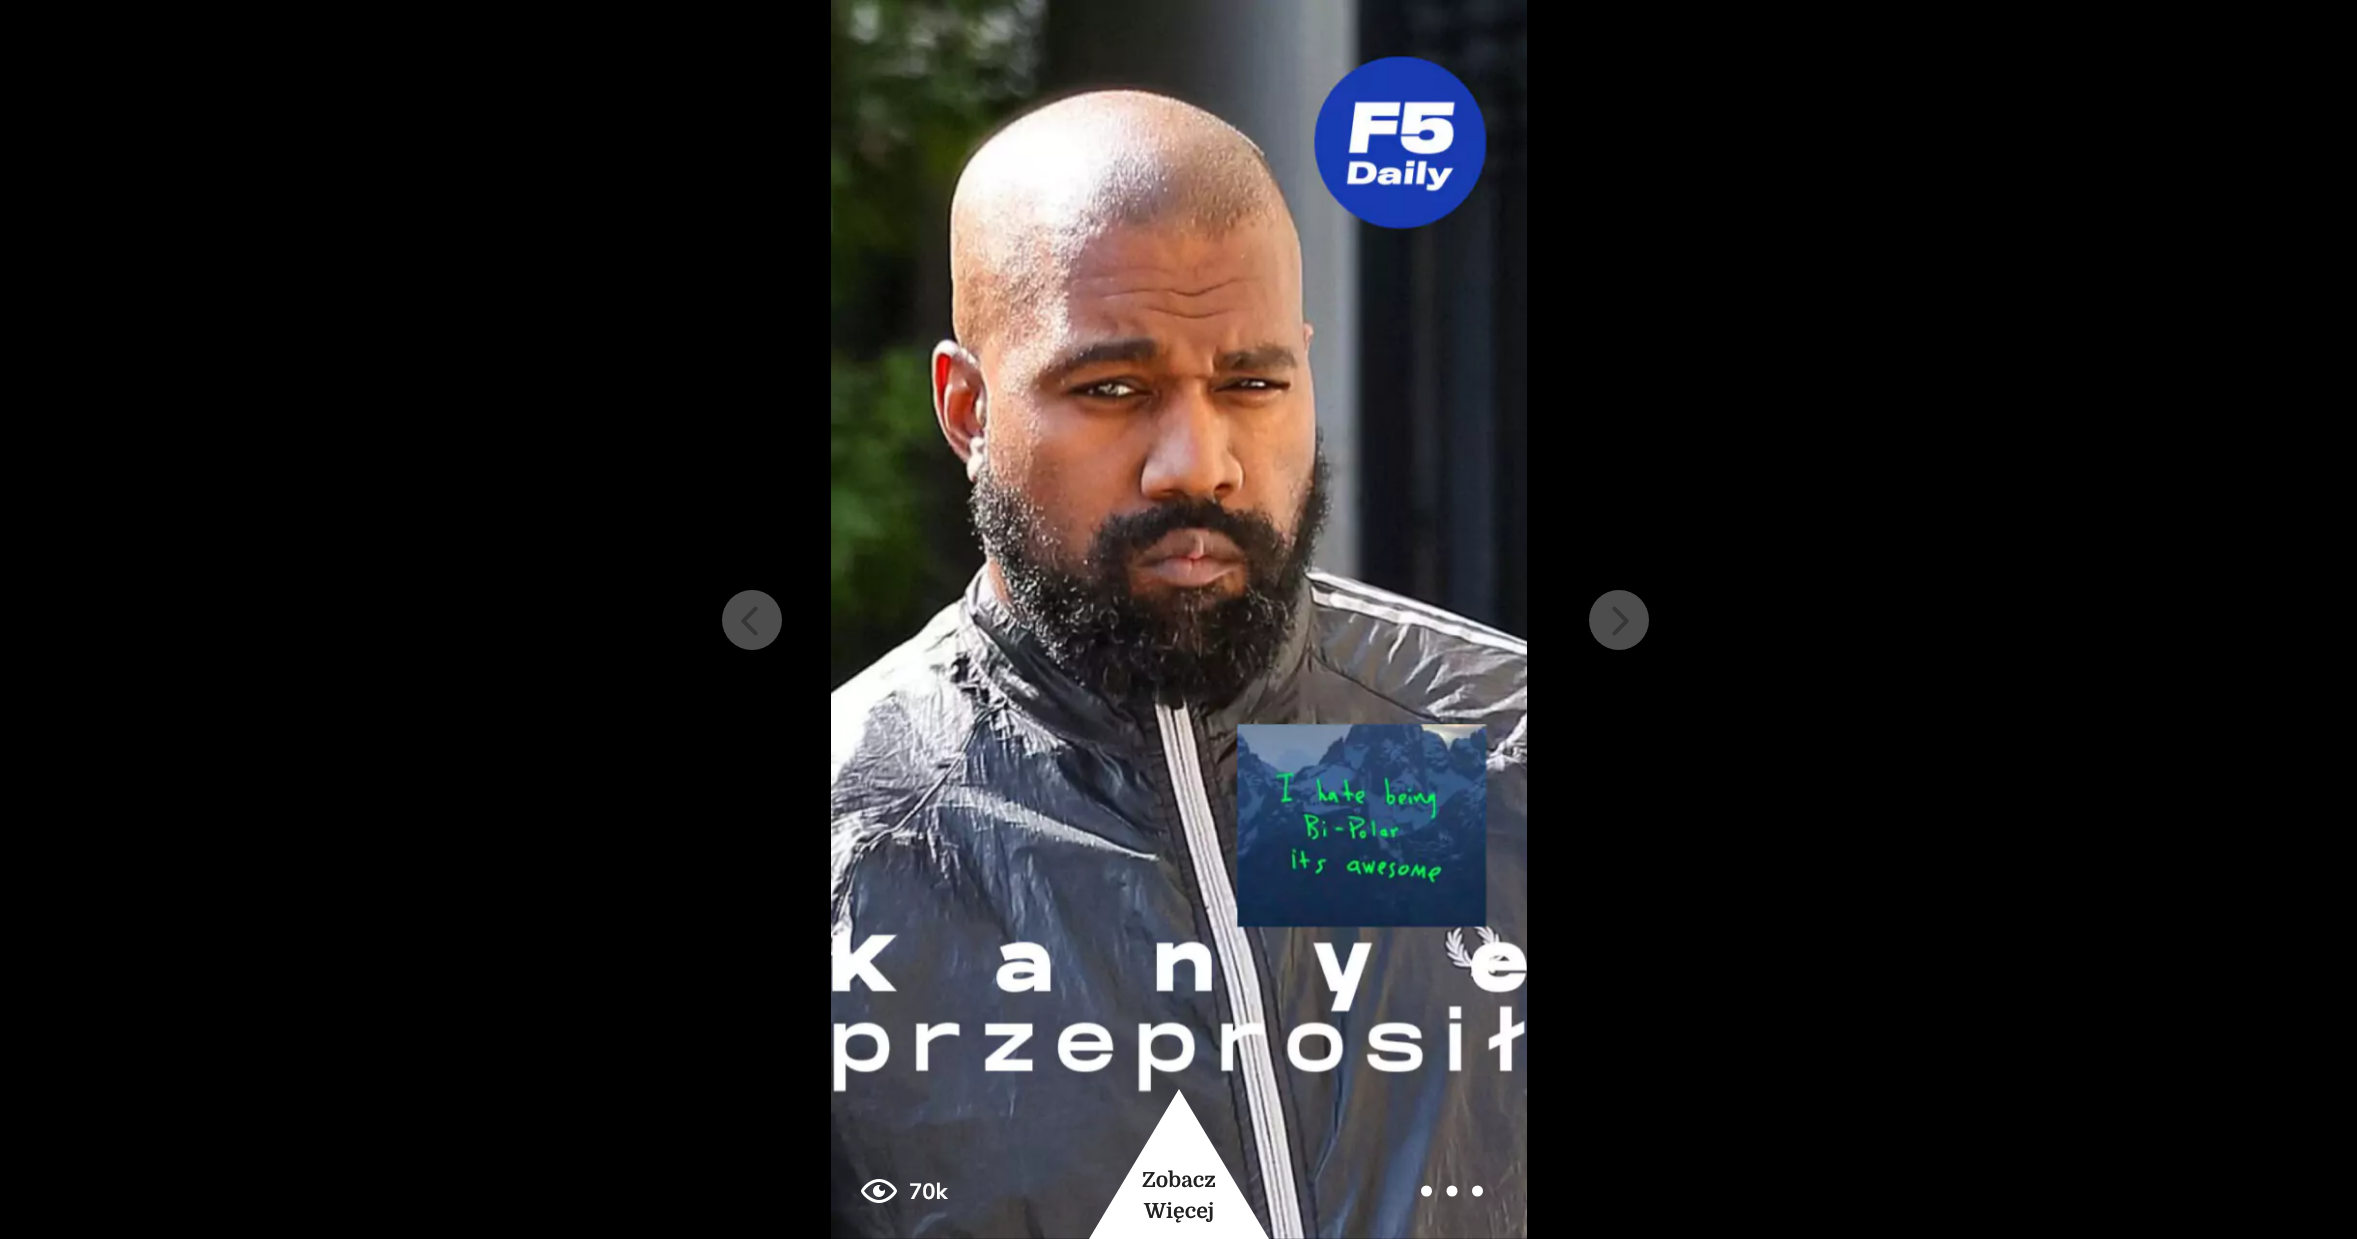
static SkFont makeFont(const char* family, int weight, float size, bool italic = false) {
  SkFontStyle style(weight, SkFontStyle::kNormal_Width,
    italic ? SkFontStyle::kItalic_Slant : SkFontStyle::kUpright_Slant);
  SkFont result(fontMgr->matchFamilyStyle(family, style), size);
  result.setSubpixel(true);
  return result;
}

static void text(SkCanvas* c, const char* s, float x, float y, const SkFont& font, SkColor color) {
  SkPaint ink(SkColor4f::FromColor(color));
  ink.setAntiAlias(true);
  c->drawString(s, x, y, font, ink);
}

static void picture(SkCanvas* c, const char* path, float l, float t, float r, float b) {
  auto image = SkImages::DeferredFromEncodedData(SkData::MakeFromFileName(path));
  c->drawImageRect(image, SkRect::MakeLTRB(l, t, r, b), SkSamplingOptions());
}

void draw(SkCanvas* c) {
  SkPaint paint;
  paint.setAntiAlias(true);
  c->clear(0xff000000);
  paint.setColor(0xff4d4d4d);
  c->drawCircle(752, 620, 30, paint);
  picture(c, "img_01.png", 741, 606, 758, 636);
  c->drawCircle(1619, 620, 30, paint);
  picture(c, "img_02.png", 1612, 606, 1629, 636);
  picture(c, "img_04.png", 831, 0, 1527, 1239);
  picture(c, "img_03.png", 861, 1179, 897, 1203);
  SkFont face1 = makeFont("Mulish", 700, 22);
  text(c, "70k", 909, 1199, face1, 0xffffffff);
  paint.setColor(0xffffffff);
  c->drawCircle(1426.5f, 1191, 5.5f, paint);
  c->drawCircle(1452, 1191, 5.5f, paint);
  c->drawCircle(1477.5f, 1191, 5.5f, paint);
  c->drawPath(SkPathBuilder().moveTo(1179, 1089).lineTo(1089, 1239).lineTo(1269, 1239).close().detach(), paint);
  SkFont face2 = makeFont("Domine", 700, 21);
  text(c, "Zobacz", 1142, 1187, face2, 0xff222222);
  text(c, "Więcej", 1144, 1218, face2, 0xff222222);
}
